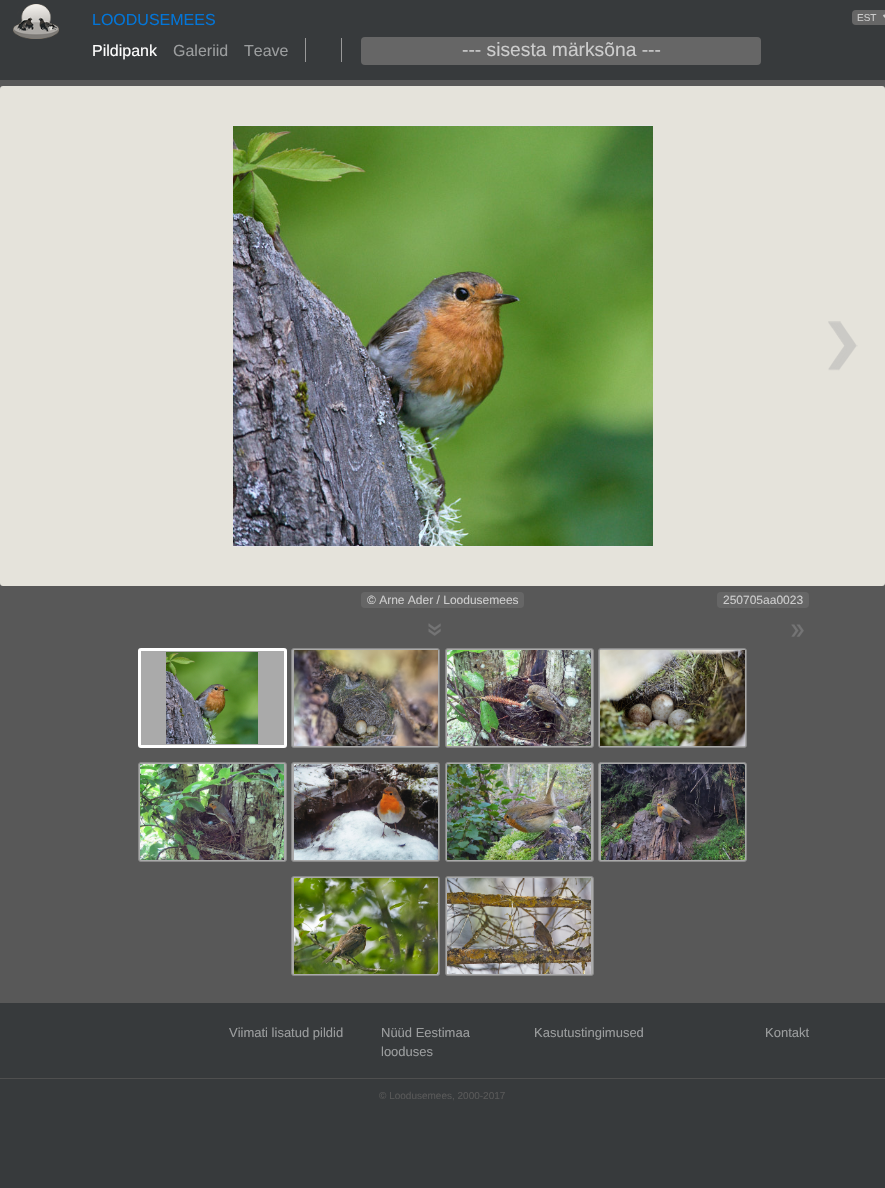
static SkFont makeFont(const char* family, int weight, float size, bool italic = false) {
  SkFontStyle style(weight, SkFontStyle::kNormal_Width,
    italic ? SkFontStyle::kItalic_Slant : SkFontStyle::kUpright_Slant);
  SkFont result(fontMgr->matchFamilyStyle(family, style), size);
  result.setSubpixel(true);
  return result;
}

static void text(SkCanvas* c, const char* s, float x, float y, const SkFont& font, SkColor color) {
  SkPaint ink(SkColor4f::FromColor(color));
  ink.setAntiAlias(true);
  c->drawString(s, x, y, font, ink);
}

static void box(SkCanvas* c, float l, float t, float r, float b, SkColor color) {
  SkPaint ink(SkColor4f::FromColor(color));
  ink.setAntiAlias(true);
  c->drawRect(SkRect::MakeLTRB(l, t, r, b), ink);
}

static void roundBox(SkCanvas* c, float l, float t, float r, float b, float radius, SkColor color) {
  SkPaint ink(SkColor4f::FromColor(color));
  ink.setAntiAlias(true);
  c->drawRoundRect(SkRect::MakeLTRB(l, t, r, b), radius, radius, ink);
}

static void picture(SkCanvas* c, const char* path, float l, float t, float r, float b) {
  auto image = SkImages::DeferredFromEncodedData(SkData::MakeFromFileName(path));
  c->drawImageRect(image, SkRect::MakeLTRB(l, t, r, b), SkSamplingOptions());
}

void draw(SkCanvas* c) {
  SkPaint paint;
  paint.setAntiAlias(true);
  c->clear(0xff373a3c);
  box(c, 0, 80, 885, 1003, 0xff585858);
  picture(c, "img_01.png", 13, 4, 59, 39);
  SkFont face1 = makeFont("Liberation Sans", 400, 16);
  text(c, "LOODUSEMEES", 92, 25, face1, 0xff0275d8);
  text(c, "Pildipank", 92, 56, face1, 0xffffffff);
  text(c, "Galeriid", 173, 56, face1, 0xff9b9d9e);
  text(c, "Teave", 244, 56, face1, 0xff9b9d9e);
  box(c, 305, 38, 306, 62, 0xff999999);
  box(c, 341, 38, 342, 62, 0xff999999);
  roundBox(c, 361, 37, 761, 65, 4, 0xff666666);
  SkFont face2 = makeFont("Liberation Sans", 400, 19.25f);
  text(c, "--- sisesta märksõna ---", 462, 56, face2, 0xffcccccc);
  roundBox(c, 852, 10, 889, 25, 4, 0xff666666);
  paint.setStyle(SkPaint::kStroke_Style);
  paint.setStrokeWidth(2);
  paint.setColor(0xffcccccc);
  c->drawPath(SkPathBuilder().moveTo(883.5f, 15).lineTo(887.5f, 19).lineTo(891.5f, 15).detach(), paint);
  SkFont face3 = makeFont("Liberation Sans", 400, 10);
  text(c, "EST", 857, 21, face3, 0xffcccccc);
  roundBox(c, 0, 86, 885, 586, 3, 0xffe5e3db);
  box(c, 233, 125, 653, 126, 0xffe5e5e5);
  picture(c, "img_02.png", 233, 126, 653, 546);
  box(c, 233, 546, 653, 547, 0xffe5e5e5);
  picture(c, "img_03.png", 828, 321, 858, 371);
  roundBox(c, 361, 592, 524, 608, 4, 0xff666666);
  SkFont face4 = makeFont("Liberation Sans", 400, 12);
  text(c, "© Arne Ader / Loodusemees", 367, 604, face4, 0xffcccccc);
  roundBox(c, 717, 592, 809, 608, 4, 0xff666666);
  text(c, "250705aa0023", 723, 604, face4, 0xffcccccc);
  picture(c, "img_04.png", 428, 623, 441, 636);
  picture(c, "img_05.png", 791, 624, 804, 637);
  paint.setStyle(SkPaint::kFill_Style);
  paint.setColor(0xffaaaaaa);
  c->drawRoundRect(SkRect::MakeLTRB(139.5f, 649.5f, 285.5f, 746.5f), 1.5f, 1.5f, paint);
  paint.setStyle(SkPaint::kStroke_Style);
  paint.setStrokeWidth(3);
  paint.setColor(0xffffffff);
  c->drawRoundRect(SkRect::MakeLTRB(139.5f, 649.5f, 285.5f, 746.5f), 1.5f, 1.5f, paint);
  picture(c, "img_06.png", 166, 652, 258, 744);
  paint.setStyle(SkPaint::kFill_Style);
  paint.setColor(0xffaaaaaa);
  c->drawRoundRect(SkRect::MakeLTRB(291.5f, 648.5f, 439.5f, 747.5f), 2.5f, 2.5f, paint);
  paint.setStyle(SkPaint::kStroke_Style);
  paint.setStrokeWidth(1);
  paint.setColor(0xff888888);
  c->drawRoundRect(SkRect::MakeLTRB(291.5f, 648.5f, 439.5f, 747.5f), 2.5f, 2.5f, paint);
  picture(c, "img_07.png", 294, 650, 438, 746);
  paint.setStyle(SkPaint::kFill_Style);
  paint.setColor(0xffaaaaaa);
  c->drawRoundRect(SkRect::MakeLTRB(445.5f, 648.5f, 593.5f, 747.5f), 2.5f, 2.5f, paint);
  paint.setStyle(SkPaint::kStroke_Style);
  paint.setColor(0xff888888);
  c->drawRoundRect(SkRect::MakeLTRB(445.5f, 648.5f, 593.5f, 747.5f), 2.5f, 2.5f, paint);
  picture(c, "img_08.png", 447, 650, 591, 746);
  paint.setStyle(SkPaint::kFill_Style);
  paint.setColor(0xffaaaaaa);
  c->drawRoundRect(SkRect::MakeLTRB(598.5f, 648.5f, 746.5f, 747.5f), 2.5f, 2.5f, paint);
  paint.setStyle(SkPaint::kStroke_Style);
  paint.setColor(0xff888888);
  c->drawRoundRect(SkRect::MakeLTRB(598.5f, 648.5f, 746.5f, 747.5f), 2.5f, 2.5f, paint);
  picture(c, "img_09.png", 600, 650, 745, 746);
  paint.setStyle(SkPaint::kFill_Style);
  paint.setColor(0xffaaaaaa);
  c->drawRoundRect(SkRect::MakeLTRB(138.5f, 762.5f, 286.5f, 861.5f), 2.5f, 2.5f, paint);
  paint.setStyle(SkPaint::kStroke_Style);
  paint.setColor(0xff888888);
  c->drawRoundRect(SkRect::MakeLTRB(138.5f, 762.5f, 286.5f, 861.5f), 2.5f, 2.5f, paint);
  picture(c, "img_10.png", 140, 764, 284, 860);
  paint.setStyle(SkPaint::kFill_Style);
  paint.setColor(0xffaaaaaa);
  c->drawRoundRect(SkRect::MakeLTRB(291.5f, 762.5f, 439.5f, 861.5f), 2.5f, 2.5f, paint);
  paint.setStyle(SkPaint::kStroke_Style);
  paint.setColor(0xff888888);
  c->drawRoundRect(SkRect::MakeLTRB(291.5f, 762.5f, 439.5f, 861.5f), 2.5f, 2.5f, paint);
  picture(c, "img_11.png", 294, 764, 438, 860);
  paint.setStyle(SkPaint::kFill_Style);
  paint.setColor(0xffaaaaaa);
  c->drawRoundRect(SkRect::MakeLTRB(445.5f, 762.5f, 593.5f, 861.5f), 2.5f, 2.5f, paint);
  paint.setStyle(SkPaint::kStroke_Style);
  paint.setColor(0xff888888);
  c->drawRoundRect(SkRect::MakeLTRB(445.5f, 762.5f, 593.5f, 861.5f), 2.5f, 2.5f, paint);
  picture(c, "img_12.png", 447, 764, 591, 860);
  paint.setStyle(SkPaint::kFill_Style);
  paint.setColor(0xffaaaaaa);
  c->drawRoundRect(SkRect::MakeLTRB(598.5f, 762.5f, 746.5f, 861.5f), 2.5f, 2.5f, paint);
  paint.setStyle(SkPaint::kStroke_Style);
  paint.setColor(0xff888888);
  c->drawRoundRect(SkRect::MakeLTRB(598.5f, 762.5f, 746.5f, 861.5f), 2.5f, 2.5f, paint);
  picture(c, "img_13.png", 601, 764, 745, 860);
  paint.setStyle(SkPaint::kFill_Style);
  paint.setColor(0xffaaaaaa);
  c->drawRoundRect(SkRect::MakeLTRB(291.5f, 876.5f, 439.5f, 975.5f), 2.5f, 2.5f, paint);
  paint.setStyle(SkPaint::kStroke_Style);
  paint.setColor(0xff888888);
  c->drawRoundRect(SkRect::MakeLTRB(291.5f, 876.5f, 439.5f, 975.5f), 2.5f, 2.5f, paint);
  picture(c, "img_14.png", 294, 878, 438, 974);
  paint.setStyle(SkPaint::kFill_Style);
  paint.setColor(0xffaaaaaa);
  c->drawRoundRect(SkRect::MakeLTRB(445.5f, 876.5f, 593.5f, 975.5f), 2.5f, 2.5f, paint);
  paint.setStyle(SkPaint::kStroke_Style);
  paint.setColor(0xff888888);
  c->drawRoundRect(SkRect::MakeLTRB(445.5f, 876.5f, 593.5f, 975.5f), 2.5f, 2.5f, paint);
  picture(c, "img_15.png", 447, 878, 591, 974);
  SkFont face5 = makeFont("Liberation Sans", 400, 13);
  text(c, "Viimati lisatud pildid", 229, 1037, face5, 0xff9b9d9e);
  text(c, "Nüüd Eestimaa", 381, 1037, face5, 0xff9b9d9e);
  text(c, "looduses", 381, 1056, face5, 0xff9b9d9e);
  text(c, "Kasutustingimused", 534, 1037, face5, 0xff9b9d9e);
  text(c, "Kontakt", 765, 1037, face5, 0xff9b9d9e);
  box(c, 0, 1078, 885, 1079, 0xff4f4f4f);
  text(c, "© Loodusemees, 2000-2017", 379, 1099, face3, 0xff585858);
}
